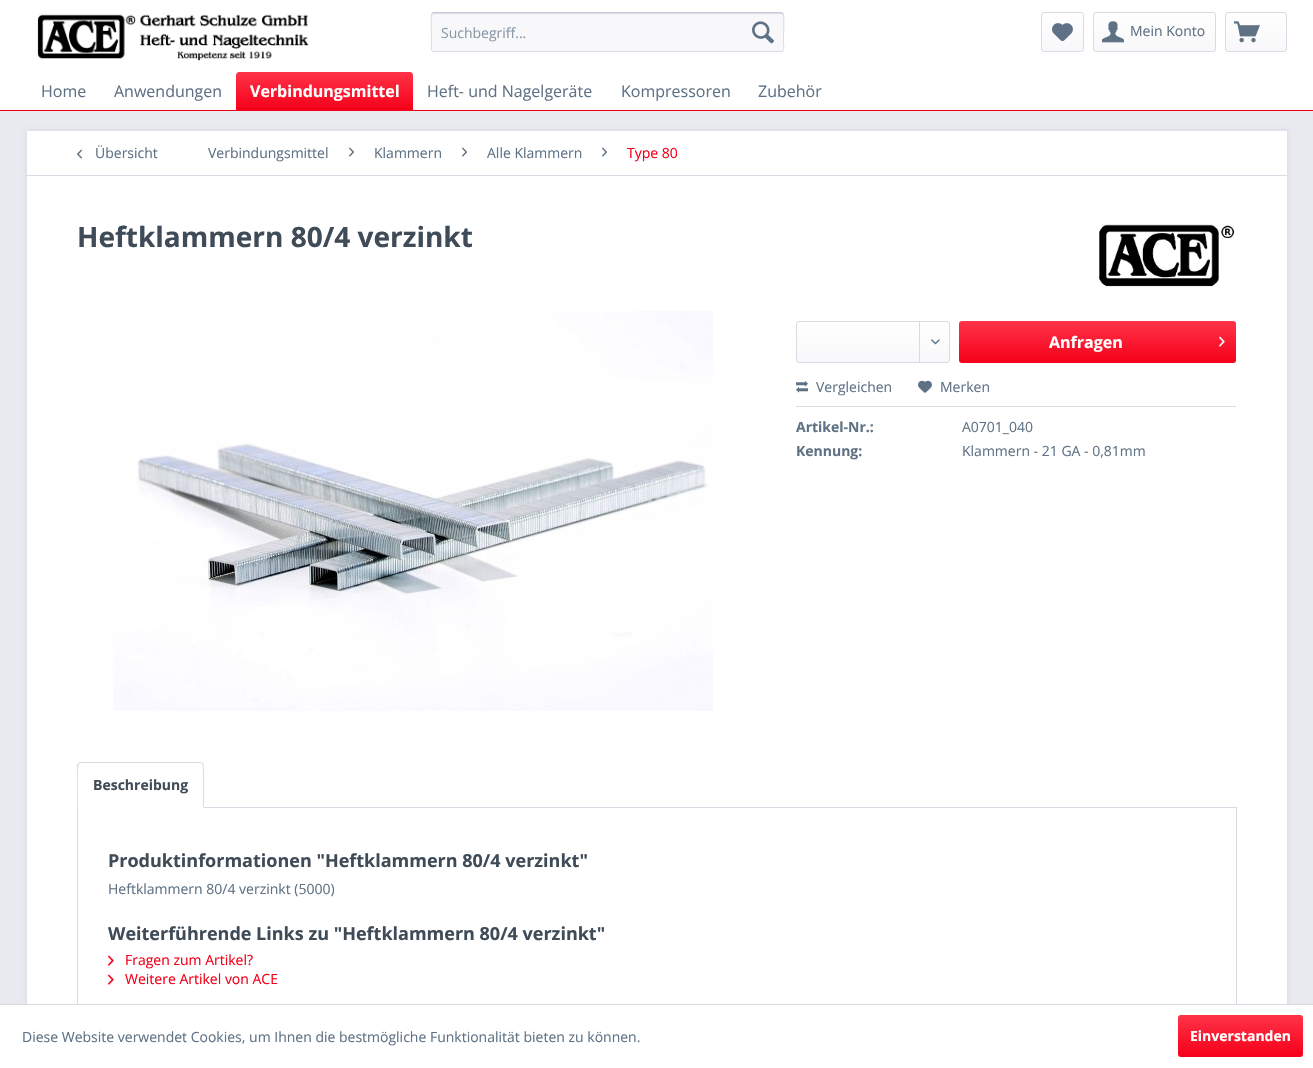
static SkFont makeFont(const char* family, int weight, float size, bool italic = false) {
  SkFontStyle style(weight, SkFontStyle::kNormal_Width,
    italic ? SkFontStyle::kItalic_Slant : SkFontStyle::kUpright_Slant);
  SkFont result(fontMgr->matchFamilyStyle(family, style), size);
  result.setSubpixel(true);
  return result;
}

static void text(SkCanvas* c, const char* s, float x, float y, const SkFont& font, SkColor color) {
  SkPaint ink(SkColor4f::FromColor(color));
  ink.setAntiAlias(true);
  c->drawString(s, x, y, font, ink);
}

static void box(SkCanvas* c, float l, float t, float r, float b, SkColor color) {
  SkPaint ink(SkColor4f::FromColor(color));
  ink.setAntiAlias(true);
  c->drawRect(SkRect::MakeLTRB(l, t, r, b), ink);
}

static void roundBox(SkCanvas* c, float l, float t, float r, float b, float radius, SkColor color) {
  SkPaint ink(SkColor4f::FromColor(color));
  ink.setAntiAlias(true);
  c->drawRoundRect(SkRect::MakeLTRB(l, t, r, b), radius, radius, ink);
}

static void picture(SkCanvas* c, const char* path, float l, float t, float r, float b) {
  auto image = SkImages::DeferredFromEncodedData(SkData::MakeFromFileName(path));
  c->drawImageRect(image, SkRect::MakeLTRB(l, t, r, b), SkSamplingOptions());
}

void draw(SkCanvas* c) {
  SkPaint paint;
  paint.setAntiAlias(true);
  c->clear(0xffe9e9f0);
  box(c, 0, 0, 1313, 110, 0xffffffff);
  picture(c, "img_01.png", 37, 14, 309, 61);
  roundBox(c, 431, 12, 784, 52, 3, 0xfff8f8fa);
  paint.setColor(0xffdadae5);
  c->drawPath(SkPathBuilder().moveTo(434, 14).lineTo(781, 14).cubicTo(782, 14, 783, 15, 783, 16).cubicTo(783, 15, 783, 13, 781, 13).lineTo(434, 13).cubicTo(432, 13, 432, 15, 432, 16).cubicTo(432, 15, 433, 14, 434, 14).close().detach(), paint);
  paint.setStyle(SkPaint::kStroke_Style);
  paint.setStrokeWidth(1);
  paint.setColor(0xffcbcbdb);
  c->drawPath(SkPathBuilder().moveTo(432, 13).lineTo(434, 12.5f).lineTo(781, 12.5f).lineTo(783, 13).detach(), paint);
  paint.setColor(0xffdadae5);
  c->drawPath(SkPathBuilder().moveTo(783, 13).cubicTo(784.5f, 15, 783.5f, 34, 783.5f, 37.5f).lineTo(783.5f, 43.5f).cubicTo(783.5f, 45, 785, 51.5f, 781, 51.5f).lineTo(434, 51.5f).cubicTo(430, 51.5f, 431.5f, 45, 431.5f, 43.5f).lineTo(431.5f, 37.5f).cubicTo(431.5f, 34, 430.5f, 15, 432, 13).detach(), paint);
  SkFont face1 = makeFont("Open Sans", 400, 14);
  text(c, "Suchbegriff...", 441, 38, face1, 0xff8798a9);
  picture(c, "img_02.png", 752, 21, 774, 44);
  paint.setStyle(SkPaint::kFill_Style);
  {
    const SkColor colors[] = {0xffffffff, 0xfff8f8fa};
    const float stops[] = {0, 1};
    const SkPoint ends[] = {{1063, 13}, {1063, 51}};
    paint.setShader(SkGradientShader::MakeLinear(ends, colors, stops, 2, SkTileMode::kClamp));
    paint.setAlpha(255);
  }
  c->drawRoundRect(SkRect::MakeLTRB(1042, 13, 1083, 51), 2, 2, paint);
  paint.setStyle(SkPaint::kStroke_Style);
  paint.setShader(nullptr);
  paint.setColor(0xffdadae5);
  c->drawRoundRect(SkRect::MakeLTRB(1041.5f, 12.5f, 1083.5f, 51.5f), 2.5f, 2.5f, paint);
  picture(c, "img_03.png", 1052, 23, 1073, 42);
  paint.setStyle(SkPaint::kFill_Style);
  {
    const SkColor colors[] = {0xffffffff, 0xfff8f8fa};
    const float stops[] = {0, 1};
    const SkPoint ends[] = {{1155, 13}, {1155, 51}};
    paint.setShader(SkGradientShader::MakeLinear(ends, colors, stops, 2, SkTileMode::kClamp));
    paint.setAlpha(255);
  }
  c->drawRoundRect(SkRect::MakeLTRB(1094, 13, 1215, 51), 2, 2, paint);
  paint.setStyle(SkPaint::kStroke_Style);
  paint.setShader(nullptr);
  paint.setColor(0xffdadae5);
  c->drawRoundRect(SkRect::MakeLTRB(1093.5f, 12.5f, 1215.5f, 51.5f), 2.5f, 2.5f, paint);
  picture(c, "img_04.png", 1102, 21, 1124, 43);
  text(c, "Mein Konto", 1130, 36, face1, 0xff5f7285);
  paint.setStyle(SkPaint::kFill_Style);
  {
    const SkColor colors[] = {0xffffffff, 0xfff8f8fa};
    const float stops[] = {0, 1};
    const SkPoint ends[] = {{1256, 13}, {1256, 51}};
    paint.setShader(SkGradientShader::MakeLinear(ends, colors, stops, 2, SkTileMode::kClamp));
    paint.setAlpha(255);
  }
  c->drawRoundRect(SkRect::MakeLTRB(1226, 13, 1286, 51), 2, 2, paint);
  paint.setStyle(SkPaint::kStroke_Style);
  paint.setShader(nullptr);
  paint.setColor(0xffdadae5);
  c->drawRoundRect(SkRect::MakeLTRB(1225.5f, 12.5f, 1286.5f, 51.5f), 2.5f, 2.5f, paint);
  picture(c, "img_05.png", 1234, 21, 1260, 43);
  box(c, 0, 110, 1313, 111, 0xfff50019);
  SkFont face2 = makeFont("Open Sans", 400, 16);
  text(c, "Home", 41, 97, face2, 0xff5f7285);
  text(c, "Anwendungen", 114, 97, face2, 0xff5f7285);
  paint.setStyle(SkPaint::kFill_Style);
  {
    const SkColor colors[] = {0xffff3348, 0xfff50019};
    const float stops[] = {0, 1};
    const SkPoint ends[] = {{325, 72}, {325, 110}};
    paint.setShader(SkGradientShader::MakeLinear(ends, colors, stops, 2, SkTileMode::kClamp));
    paint.setAlpha(255);
  }
  c->drawPath(SkPathBuilder().moveTo(239, 72).lineTo(410, 72).cubicTo(411.5f, 72, 413, 73.5f, 413, 75).lineTo(413, 110).lineTo(236, 110).lineTo(236, 75).cubicTo(236, 73.5f, 237.5f, 72, 239, 72).close().detach(), paint);
  SkFont face3 = makeFont("Open Sans", 700, 16);
  text(c, "Verbindungsmittel", 250, 97, face3, 0xffffffff);
  text(c, "Heft- und Nagelgeräte", 427, 97, face2, 0xff5f7285);
  text(c, "Kompressoren", 621, 97, face2, 0xff5f7285);
  text(c, "Zubehör", 758, 97, face2, 0xff5f7285);
  paint.setShader(nullptr);
  paint.setColor(0xffdadae5);
  paint.setMaskFilter(SkMaskFilter::MakeBlur(kNormal_SkBlurStyle, 2));
  c->drawRect(SkRect::MakeLTRB(26, 130, 1288, 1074), paint);
  paint.setMaskFilter(nullptr);
  box(c, 27, 131, 1287, 1004, 0xffffffff);
  box(c, 27, 175, 1287, 176, 0xffdadae5);
  picture(c, "img_06.png", 77, 149, 82, 159);
  text(c, "Übersicht", 95, 158, face1, 0xff5f7285);
  text(c, "Verbindungsmittel", 208, 158, face1, 0xff5f7285);
  picture(c, "img_07.png", 349, 147, 354, 157);
  text(c, "Klammern", 374, 158, face1, 0xff5f7285);
  picture(c, "img_07.png", 462, 147, 467, 157);
  text(c, "Alle Klammern", 487, 158, face1, 0xff5f7285);
  picture(c, "img_07.png", 602, 147, 607, 157);
  text(c, "Type 80", 627, 158, face1, 0xfff50019);
  SkFont face4 = makeFont("Open Sans", 700, 28);
  text(c, "Heftklammern 80/4 verzinkt", 77, 247, face4, 0xff3f4c58);
  picture(c, "img_08.png", 1099, 224, 1235, 287);
  picture(c, "img_09.png", 113, 311, 713, 711);
  {
    const SkColor colors[] = {0xffffffff, 0xfff8f8fa};
    const float stops[] = {0, 1};
    const SkPoint ends[] = {{873, 322}, {873, 362}};
    paint.setShader(SkGradientShader::MakeLinear(ends, colors, stops, 2, SkTileMode::kClamp));
    paint.setAlpha(255);
  }
  c->drawRoundRect(SkRect::MakeLTRB(797, 322, 949, 362), 2, 2, paint);
  paint.setStyle(SkPaint::kStroke_Style);
  paint.setShader(nullptr);
  paint.setColor(0xffdadae5);
  c->drawRoundRect(SkRect::MakeLTRB(796.5f, 321.5f, 949.5f, 362.5f), 2.5f, 2.5f, paint);
  box(c, 919, 322, 920, 362, 0xffdadae5);
  picture(c, "img_10.png", 931, 339, 940, 345);
  paint.setStyle(SkPaint::kFill_Style);
  {
    const SkColor colors[] = {0xffff3348, 0xfff50019};
    const float stops[] = {0, 1};
    const SkPoint ends[] = {{1098, 321}, {1098, 363}};
    paint.setShader(SkGradientShader::MakeLinear(ends, colors, stops, 2, SkTileMode::kClamp));
    paint.setAlpha(255);
  }
  c->drawRoundRect(SkRect::MakeLTRB(959, 321, 1236, 363), 3, 3, paint);
  text(c, "Anfragen", 1049, 348, face3, 0xffffffff);
  picture(c, "img_11.png", 1219, 336, 1225, 347);
  box(c, 796, 406, 1236, 407, 0xffdadae5);
  picture(c, "img_12.png", 796, 380, 808, 393);
  text(c, "Vergleichen", 816, 392, face1, 0xff5f7285);
  picture(c, "img_13.png", 918, 380, 932, 393);
  text(c, "Merken", 940, 392, face1, 0xff5f7285);
  SkFont face5 = makeFont("Open Sans", 700, 14);
  text(c, "Artikel-Nr.:", 796, 432, face5, 0xff5f7285);
  text(c, "A0701_040", 962, 432, face1, 0xff5f7285);
  text(c, "Kennung:", 796, 456, face5, 0xff5f7285);
  text(c, "Klammern - 21 GA - 0,81mm", 962, 456, face1, 0xff5f7285);
  paint.setStyle(SkPaint::kStroke_Style);
  paint.setShader(nullptr);
  paint.setColor(0xffdadae5);
  c->drawRect(SkRect::MakeLTRB(77.5f, 807.5f, 1236.5f, 1018.5f), paint);
  paint.setStyle(SkPaint::kFill_Style);
  paint.setColor(0xffffffff);
  c->drawPath(SkPathBuilder().moveTo(80, 762).lineTo(201, 762).cubicTo(202.5f, 762, 204, 763.5f, 204, 765).lineTo(204, 808).lineTo(77, 808).lineTo(77, 765).cubicTo(77, 763.5f, 78.5f, 762, 80, 762).close().detach(), paint);
  paint.setColor(0xffdadae5);
  c->drawPath(SkPathBuilder().moveTo(80, 762).lineTo(78, 763).lineTo(79, 764).lineTo(80, 763).lineTo(201, 763).lineTo(202, 764).lineTo(203, 763).lineTo(201, 762).close().detach(), paint);
  c->drawPath(SkPathBuilder().moveTo(204, 808).cubicTo(204, 803, 205, 765, 203, 763).lineTo(202, 764).cubicTo(204, 765, 203, 802, 203, 807).close().detach(), paint);
  paint.setColor(0xffffffff);
  c->drawPath(SkPathBuilder().moveTo(204, 808).lineTo(203, 807).lineTo(78, 807).lineTo(77, 808).close().detach(), paint);
  paint.setColor(0xffdadae5);
  c->drawPath(SkPathBuilder().moveTo(77, 808).lineTo(78, 807).cubicTo(78, 802, 77, 765, 79, 764).lineTo(78, 763).lineTo(77, 765).close().detach(), paint);
  text(c, "Beschreibung", 93, 790, face5, 0xff3f4c58);
  SkFont face6 = makeFont("Open Sans", 700, 18);
  text(c, "Produktinformationen \"Heftklammern 80/4 verzinkt\"", 108, 867, face6, 0xff3f4c58);
  text(c, "Heftklammern 80/4 verzinkt (5000)", 108, 894, face1, 0xff5f7285);
  text(c, "Weiterführende Links zu \"Heftklammern 80/4 verzinkt\"", 108, 940, face6, 0xff3f4c58);
  picture(c, "img_14.png", 108, 955, 114, 966);
  text(c, "Fragen zum Artikel?", 125, 965, face1, 0xfff50019);
  picture(c, "img_14.png", 108, 974, 114, 985);
  text(c, "Weitere Artikel von ACE", 125, 984, face1, 0xfff50019);
  box(c, 0, 1005, 1313, 1068, 0xffffffff);
  box(c, 0, 1004, 1313, 1005, 0xffdadae5);
  text(c, "Diese Website verwendet Cookies, um Ihnen die bestmögliche Funktionalität bieten zu können.", 22, 1042, face1, 0xff5f7285);
  {
    const SkColor colors[] = {0xffff3348, 0xfff50019};
    const float stops[] = {0, 1};
    const SkPoint ends[] = {{1241, 1015}, {1241, 1057}};
    paint.setShader(SkGradientShader::MakeLinear(ends, colors, stops, 2, SkTileMode::kClamp));
    paint.setAlpha(255);
  }
  c->drawRoundRect(SkRect::MakeLTRB(1178, 1015, 1303, 1057), 3, 3, paint);
  text(c, "Einverstanden", 1190, 1041, face5, 0xffffffff);
}
